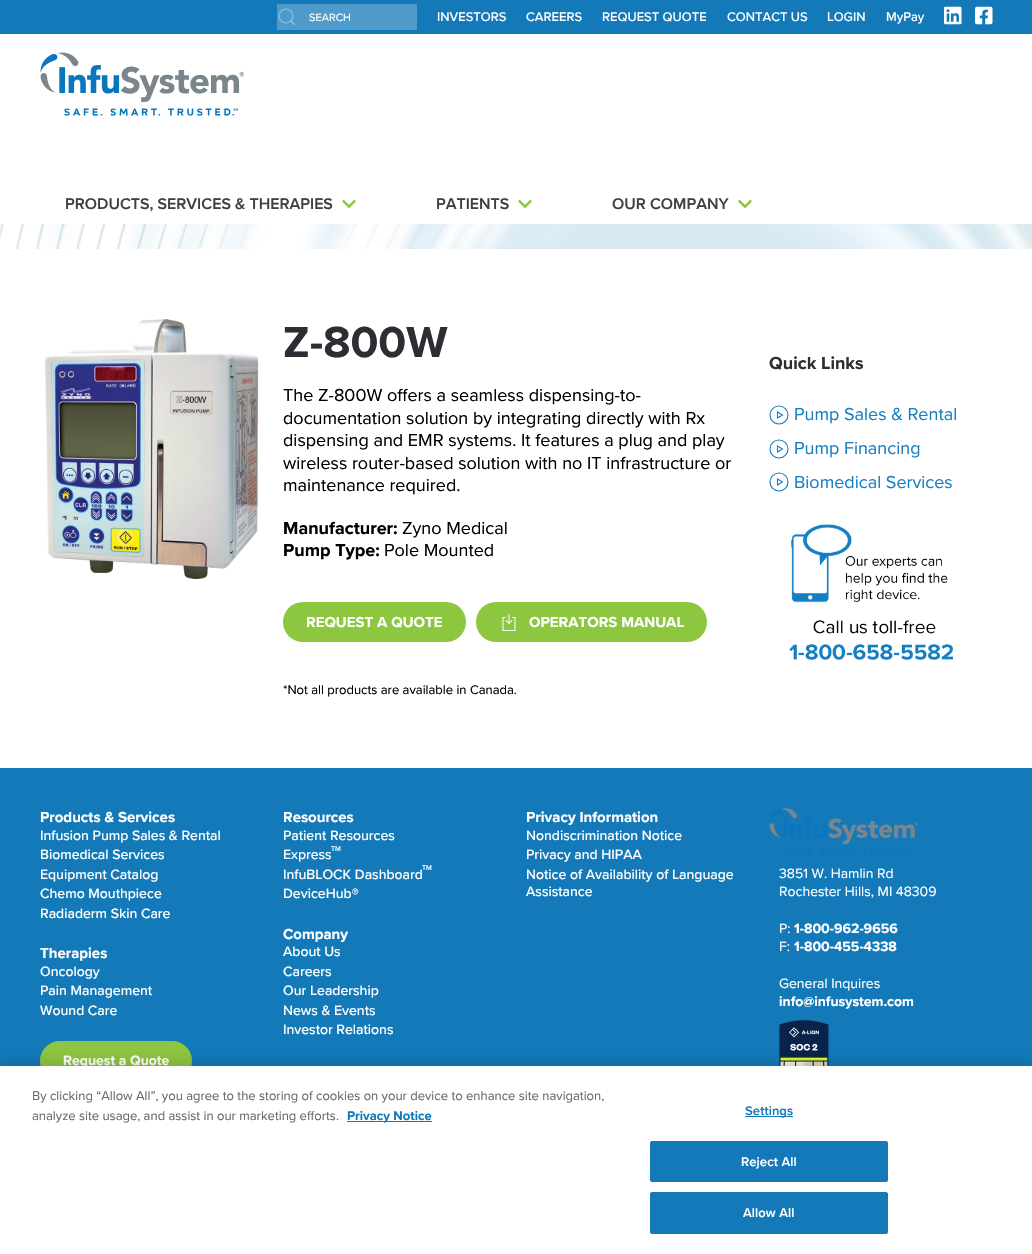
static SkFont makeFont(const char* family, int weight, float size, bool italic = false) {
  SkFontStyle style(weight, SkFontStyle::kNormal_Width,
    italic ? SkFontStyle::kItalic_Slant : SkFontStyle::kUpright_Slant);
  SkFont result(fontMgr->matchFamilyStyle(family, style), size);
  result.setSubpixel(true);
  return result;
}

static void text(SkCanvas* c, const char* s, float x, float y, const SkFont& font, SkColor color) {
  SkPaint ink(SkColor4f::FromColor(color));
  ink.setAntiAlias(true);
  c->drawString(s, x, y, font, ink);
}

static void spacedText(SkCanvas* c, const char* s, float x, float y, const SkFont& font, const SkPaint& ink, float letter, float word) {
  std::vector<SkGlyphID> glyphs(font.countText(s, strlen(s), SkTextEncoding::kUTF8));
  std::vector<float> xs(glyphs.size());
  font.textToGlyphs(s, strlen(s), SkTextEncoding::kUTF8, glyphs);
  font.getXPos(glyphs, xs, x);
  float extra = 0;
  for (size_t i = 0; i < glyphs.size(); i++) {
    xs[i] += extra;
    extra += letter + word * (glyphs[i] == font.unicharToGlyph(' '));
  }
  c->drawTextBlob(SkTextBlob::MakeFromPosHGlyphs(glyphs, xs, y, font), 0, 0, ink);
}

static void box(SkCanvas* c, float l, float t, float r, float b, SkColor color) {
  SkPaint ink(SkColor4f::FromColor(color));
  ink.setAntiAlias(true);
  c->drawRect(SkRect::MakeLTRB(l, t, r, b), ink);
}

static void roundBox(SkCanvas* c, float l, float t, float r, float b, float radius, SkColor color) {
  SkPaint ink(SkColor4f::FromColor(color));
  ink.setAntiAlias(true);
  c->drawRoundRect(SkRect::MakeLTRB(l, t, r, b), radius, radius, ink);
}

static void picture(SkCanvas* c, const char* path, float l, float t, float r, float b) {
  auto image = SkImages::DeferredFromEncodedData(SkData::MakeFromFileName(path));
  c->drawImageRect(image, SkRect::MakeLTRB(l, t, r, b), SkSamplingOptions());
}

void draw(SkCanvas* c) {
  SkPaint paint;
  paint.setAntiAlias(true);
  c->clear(0xffffffff);
  box(c, 0, 0, 1032, 34, 0xff1379b9);
  box(c, 277, 4, 417, 30, 0xff4e9bcb);
  paint.setStyle(SkPaint::kStroke_Style);
  paint.setStrokeWidth(1.1f);
  paint.setColor(0xff95c3e0);
  c->drawCircle(286, 16, 7, paint);
  paint.setColor(0x66ffffff);
  c->drawPath(SkPathBuilder().moveTo(291, 21).lineTo(295, 25).close().detach(), paint);
  SkFont face1 = makeFont("Proxima Nova", 400, 11);
  text(c, "SEARCH", 309, 21, face1, 0xffffffff);
  SkFont face2 = makeFont("Proxima Nova", 500, 13);
  text(c, "INVESTORS", 437, 21, face2, 0xffffffff);
  text(c, "CAREERS", 526, 21, face2, 0xffffffff);
  text(c, "REQUEST QUOTE", 602, 21, face2, 0xffffffff);
  text(c, "CONTACT US", 727, 21, face2, 0xffffffff);
  text(c, "LOGIN", 827, 21, face2, 0xffffffff);
  text(c, "MyPay", 886, 21, face2, 0xffffffff);
  picture(c, "img_01.png", 944, 6, 962, 25);
  picture(c, "img_02.png", 975, 6, 993, 25);
  picture(c, "img_03.png", 40, 52, 245, 116);
  SkFont face3 = makeFont("Proxima Nova", 600, 16);
  text(c, "PRODUCTS, SERVICES & THERAPIES", 65, 209, face3, 0xff404040);
  picture(c, "img_04.png", 342, 199, 356, 209);
  text(c, "PATIENTS", 436, 209, face3, 0xff404040);
  picture(c, "img_04.png", 518, 199, 532, 209);
  text(c, "OUR COMPANY", 612, 209, face3, 0xff404040);
  picture(c, "img_04.png", 738, 199, 752, 209);
  picture(c, "img_05.png", 0, 224, 1032, 249);
  picture(c, "img_06.png", 44, 319, 259, 579);
  SkFont face4 = makeFont("Proxima Nova", 700, 45);
  text(c, "Z-800W", 283, 357, face4, 0xff2d2e33);
  SkFont face5 = makeFont("Proxima Nova", 400, 18);
  text(c, "The Z-800W offers a seamless dispensing-to-", 283, 401, face5, 0xff000000);
  text(c, "documentation solution by integrating directly with Rx", 283, 424, face5, 0xff000000);
  text(c, "dispensing and EMR systems. It features a plug and play", 283, 446, face5, 0xff000000);
  text(c, "wireless router-based solution with no IT infrastructure or", 283, 469, face5, 0xff000000);
  text(c, "maintenance required.", 283, 491, face5, 0xff000000);
  SkFont face6 = makeFont("Proxima Nova", 700, 18);
  text(c, "Manufacturer:", 283, 534, face6, 0xff000000);
  text(c, "Zyno Medical", 402, 534, face5, 0xff000000);
  text(c, "Pump Type:", 283, 556, face6, 0xff000000);
  text(c, "Pole Mounted", 384, 556, face5, 0xff000000);
  roundBox(c, 283, 602, 466, 642, 20, 0xff8dc63f);
  SkFont face7 = makeFont("Proxima Nova", 700, 15);
  text(c, "REQUEST A QUOTE", 306, 627, face7, 0xffffffff);
  roundBox(c, 476, 602, 707, 642, 20, 0xff8dc63f);
  picture(c, "img_07.png", 502, 614, 516, 631);
  text(c, "OPERATORS MANUAL", 529, 627, face7, 0xffffffff);
  SkFont face8 = makeFont("Proxima Nova", 400, 13);
  text(c, "*Not all products are available in Canada.", 283, 694, face8, 0xff000000);
  text(c, "Quick Links", 769, 369, face6, 0xff2d2e33);
  paint.setColor(0xff157fc3);
  c->drawPath(SkPathBuilder().moveTo(777.5f, 412).lineTo(782.5f, 415).lineTo(777.5f, 418).close().detach(), paint);
  c->drawCircle(779, 415, 9, paint);
  text(c, "Pump Sales & Rental", 794, 420, face5, 0xff157fc3);
  c->drawPath(SkPathBuilder().moveTo(777.5f, 446).lineTo(782.5f, 449).lineTo(777.5f, 452).close().detach(), paint);
  c->drawCircle(779, 449, 9, paint);
  text(c, "Pump Financing", 794, 454, face5, 0xff157fc3);
  c->drawPath(SkPathBuilder().moveTo(777.5f, 479).lineTo(782.5f, 482).lineTo(777.5f, 485).close().detach(), paint);
  c->drawCircle(779, 482, 9, paint);
  text(c, "Biomedical Services", 794, 488, face5, 0xff157fc3);
  picture(c, "img_08.png", 789, 524, 953, 660);
  box(c, 0, 768, 1032, 1066, 0xff1379b9);
  text(c, "Products & Services", 40, 822, face7, 0xffffffff);
  SkFont face9 = makeFont("Proxima Nova", 500, 14);
  text(c, "Infusion Pump Sales & Rental", 40, 840, face9, 0xffffffff);
  text(c, "Biomedical Services", 40, 859, face9, 0xffffffff);
  text(c, "Equipment Catalog", 40, 879, face9, 0xffffffff);
  text(c, "Chemo Mouthpiece", 40, 898, face9, 0xffffffff);
  text(c, "Radiaderm Skin Care", 40, 918, face9, 0xffffffff);
  text(c, "Therapies", 40, 958, face7, 0xffffffff);
  text(c, "Oncology", 40, 976, face9, 0xffffffff);
  text(c, "Pain Management", 40, 995, face9, 0xffffffff);
  text(c, "Wound Care", 40, 1015, face9, 0xffffffff);
  paint.setStyle(SkPaint::kFill_Style);
  paint.setColor(0xff8dc63f);
  c->drawRoundRect(SkRect::MakeLTRB(41.5f, 1042.5f, 190.5f, 1079.5f), 18.5f, 18.5f, paint);
  paint.setStyle(SkPaint::kStroke_Style);
  paint.setStrokeWidth(3);
  c->drawRoundRect(SkRect::MakeLTRB(41.5f, 1042.5f, 190.5f, 1079.5f), 18.5f, 18.5f, paint);
  SkFont face10 = makeFont("Proxima Nova", 700, 14);
  text(c, "Request a Quote", 63, 1065, face10, 0xffffffff);
  text(c, "Resources", 283, 822, face7, 0xffffffff);
  text(c, "Patient Resources", 283, 840, face9, 0xffffffff);
  SkFont face11 = makeFont("Proxima Nova", 500, 7);
  text(c, "TM", 331, 851, face11, 0xffffffff);
  text(c, "Express", 283, 859, face9, 0xffffffff);
  text(c, "TM", 422, 870, face11, 0xffffffff);
  text(c, "InfuBLOCK Dashboard", 283, 879, face9, 0xffffffff);
  text(c, "DeviceHub®", 283, 898, face9, 0xffffffff);
  text(c, "Company", 283, 939, face7, 0xffffffff);
  text(c, "About Us", 283, 956, face9, 0xffffffff);
  text(c, "Careers", 283, 976, face9, 0xffffffff);
  text(c, "Our Leadership", 283, 995, face9, 0xffffffff);
  text(c, "News & Events", 283, 1015, face9, 0xffffffff);
  text(c, "Investor Relations", 283, 1034, face9, 0xffffffff);
  text(c, "Privacy Information", 526, 822, face7, 0xffffffff);
  text(c, "Nondiscrimination Notice", 526, 840, face9, 0xffffffff);
  text(c, "Privacy and HIPAA", 526, 859, face9, 0xffffffff);
  text(c, "Notice of Availability of Language", 526, 879, face9, 0xffffffff);
  text(c, "Assistance", 526, 896, face9, 0xffffffff);
  picture(c, "img_09.png", 769, 808, 919, 854);
  SkFont face12 = makeFont("Proxima Nova", 400, 14);
  text(c, "3851 W. Hamlin Rd", 779, 878, face12, 0xffffffff);
  text(c, "Rochester Hills, MI 48309", 779, 896, face12, 0xffffffff);
  text(c, "P:", 779, 933, face12, 0xffffffff);
  text(c, "1-800-962-9656", 794, 933, face10, 0xffffffff);
  text(c, "F:", 779, 951, face12, 0xffffffff);
  text(c, "1-800-455-4338", 794, 951, face10, 0xffffffff);
  text(c, "General Inquires", 779, 988, face12, 0xffffffff);
  text(c, "info@infusystem.com", 779, 1006, face10, 0xffffffff);
  picture(c, "img_10.png", 779, 1020, 829, 1066);
  paint.setStyle(SkPaint::kFill_Style);
  paint.setColor(0x33000000);
  paint.setMaskFilter(SkMaskFilter::MakeBlur(kNormal_SkBlurStyle, 9));
  c->drawRect(SkRect::MakeLTRB(0, 1066, 1032, 1254), paint);
  paint.setMaskFilter(nullptr);
  box(c, 0, 1066, 1032, 1254, 0xffffffff);
  text(c, "By clicking “Allow All”, you agree to the storing of cookies on your device to enhance site navigation,", 32, 1100, face8, 0xff696969);
  text(c, "analyze site usage, and assist in our marketing efforts.", 32, 1120, face8, 0xff696969);
  box(c, 347, 1121, 432, 1122, 0xff1379b9);
  SkFont face13 = makeFont("Proxima Nova", 700, 13);
  text(c, "Privacy Notice", 347, 1120, face13, 0xff1379b9);
  box(c, 745, 1116, 793, 1117, 0xff1379b9);
  SkFont face14 = makeFont("Proxima Nova", 600, 13);
  paint.setColor(0xff1379b9);
  spacedText(c, "Settings", 745, 1115, face14, paint, 0.1f, 0);
  c->drawRoundRect(SkRect::MakeLTRB(650.5f, 1141.5f, 887.5f, 1181.5f), 1.5f, 1.5f, paint);
  paint.setStyle(SkPaint::kStroke_Style);
  paint.setStrokeWidth(1);
  c->drawRoundRect(SkRect::MakeLTRB(650.5f, 1141.5f, 887.5f, 1181.5f), 1.5f, 1.5f, paint);
  paint.setStyle(SkPaint::kFill_Style);
  paint.setColor(0xffffffff);
  spacedText(c, "Reject All", 741, 1166, face14, paint, 0.1f, 0);
  paint.setColor(0xff1379b9);
  c->drawRoundRect(SkRect::MakeLTRB(650.5f, 1192.5f, 887.5f, 1233.5f), 1.5f, 1.5f, paint);
  paint.setStyle(SkPaint::kStroke_Style);
  c->drawRoundRect(SkRect::MakeLTRB(650.5f, 1192.5f, 887.5f, 1233.5f), 1.5f, 1.5f, paint);
  paint.setStyle(SkPaint::kFill_Style);
  paint.setColor(0xffffffff);
  spacedText(c, "Allow All", 743, 1217, face14, paint, 0.1f, 0);
}
